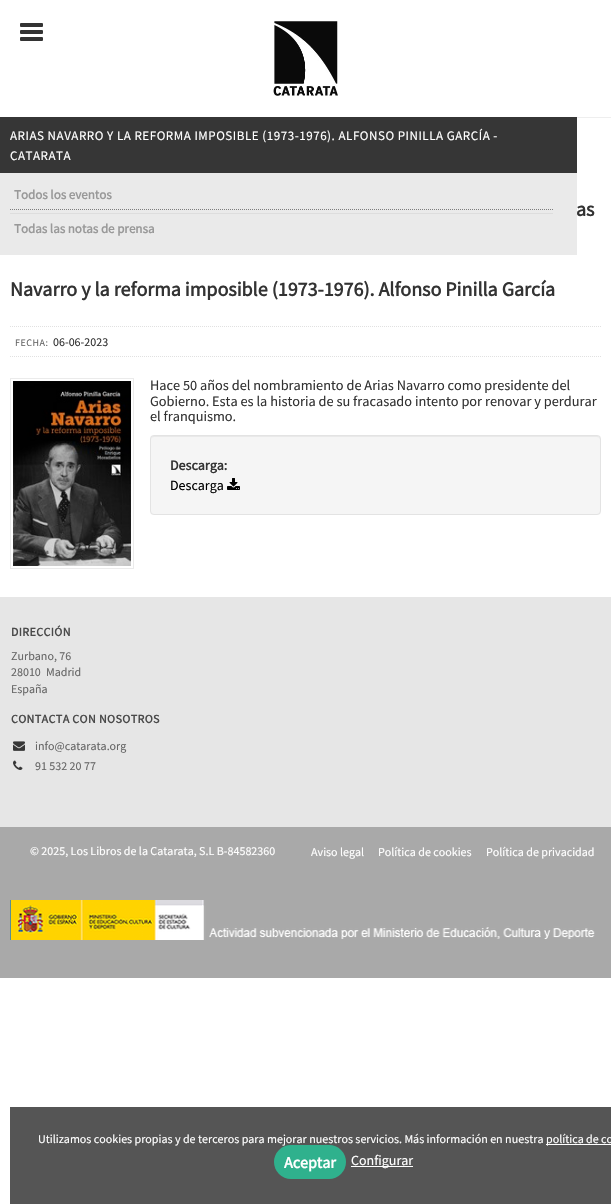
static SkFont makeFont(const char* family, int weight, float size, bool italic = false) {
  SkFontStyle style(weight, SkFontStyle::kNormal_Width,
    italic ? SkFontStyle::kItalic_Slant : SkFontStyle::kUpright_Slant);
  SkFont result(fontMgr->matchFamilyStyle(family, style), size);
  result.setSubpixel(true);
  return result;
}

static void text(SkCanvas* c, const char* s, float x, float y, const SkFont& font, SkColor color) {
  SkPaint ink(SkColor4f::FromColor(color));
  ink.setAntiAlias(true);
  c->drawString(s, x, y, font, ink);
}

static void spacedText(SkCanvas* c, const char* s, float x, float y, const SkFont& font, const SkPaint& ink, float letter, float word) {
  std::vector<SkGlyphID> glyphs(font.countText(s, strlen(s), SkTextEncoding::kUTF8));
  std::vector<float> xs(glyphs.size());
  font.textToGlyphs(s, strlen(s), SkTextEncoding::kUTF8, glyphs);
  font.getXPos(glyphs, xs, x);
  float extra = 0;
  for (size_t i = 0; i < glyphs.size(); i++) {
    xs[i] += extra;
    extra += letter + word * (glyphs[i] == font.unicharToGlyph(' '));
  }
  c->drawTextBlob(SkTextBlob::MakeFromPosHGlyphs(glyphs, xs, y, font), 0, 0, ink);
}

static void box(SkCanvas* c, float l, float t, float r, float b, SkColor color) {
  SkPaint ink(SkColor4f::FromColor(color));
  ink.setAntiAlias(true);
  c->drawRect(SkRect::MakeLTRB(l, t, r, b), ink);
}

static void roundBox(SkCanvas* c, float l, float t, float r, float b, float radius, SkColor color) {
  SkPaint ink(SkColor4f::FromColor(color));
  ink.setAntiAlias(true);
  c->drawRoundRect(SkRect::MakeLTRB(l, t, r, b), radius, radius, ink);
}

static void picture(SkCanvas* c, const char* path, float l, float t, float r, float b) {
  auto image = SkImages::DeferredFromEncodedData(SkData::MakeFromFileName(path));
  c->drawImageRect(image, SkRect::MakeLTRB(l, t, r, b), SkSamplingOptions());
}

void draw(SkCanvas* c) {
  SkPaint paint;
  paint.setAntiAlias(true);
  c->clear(0xffffffff);
  box(c, 577, 117, 611, 118, 0xffeeeeee);
  roundBox(c, 20, 23, 43, 27, 1, 0xff333333);
  roundBox(c, 20, 30, 43, 34, 1, 0xff333333);
  roundBox(c, 20, 37, 43, 41, 1, 0xff333333);
  picture(c, "img_01.png", 273, 21, 338, 96);
  box(c, 0, 117, 577, 173, 0xff363636);
  SkFont face1 = makeFont("Source Sans Pro", 400, 13);
  paint.setColor(0xffffffff);
  spacedText(c, "ARIAS NAVARRO Y LA REFORMA IMPOSIBLE (1973-1976). ALFONSO PINILLA GARCÍA -", 10, 140, face1, paint, 0.52f, 0);
  spacedText(c, "CATARATA", 10, 160, face1, paint, 0.52f, 0);
  SkFont face2 = makeFont("Source Sans Pro", 700, 20);
  text(c, "as", 576, 216, face2, 0xff333333);
  box(c, 0, 173, 577, 255, 0xffeaeaea);
  box(c, 10, 213, 553, 214, 0xffdddddd);
  paint.setStyle(SkPaint::kStroke_Style);
  paint.setStrokeWidth(1);
  paint.setColor(0xff7c7c7c);
  paint.setPathEffect(SkDashPathEffect::Make({{1, 1}}, 0));
  c->drawPath(SkPathBuilder().moveTo(10, 209.5f).lineTo(553, 209.5f).detach(), paint);
  paint.setPathEffect(nullptr);
  SkFont face3 = makeFont("Source Sans Pro", 700, 13);
  text(c, "Todos los eventos", 14, 199, face3, 0xff999999);
  text(c, "Todas las notas de prensa", 14, 233, face3, 0xff999999);
  text(c, "Navarro y la reforma imposible (1973-1976). Alfonso Pinilla García", 10, 296, face2, 0xff333333);
  paint.setColor(0xffe1e1e1);
  paint.setPathEffect(SkDashPathEffect::Make({{1, 1}}, 0));
  c->drawPath(SkPathBuilder().moveTo(10, 326.5f).lineTo(601, 326.5f).detach(), paint);
  paint.setPathEffect(nullptr);
  paint.setPathEffect(SkDashPathEffect::Make({{1, 1}}, 0));
  c->drawPath(SkPathBuilder().moveTo(10, 356.5f).lineTo(601, 356.5f).detach(), paint);
  paint.setPathEffect(nullptr);
  SkFont face4 = makeFont("Source Sans Pro", 400, 10);
  paint.setStyle(SkPaint::kFill_Style);
  paint.setColor(0xff666666);
  spacedText(c, "FECHA:", 15, 346, face4, paint, 0.5f, 0);
  SkFont face5 = makeFont("Source Sans Pro", 400, 12);
  text(c, "06-06-2023", 53, 346, face5, 0xff333333);
  paint.setStyle(SkPaint::kStroke_Style);
  paint.setColor(0xffebebeb);
  c->drawRect(SkRect::MakeLTRB(10.5f, 378.5f, 133.5f, 568.5f), paint);
  picture(c, "img_02.png", 13, 381, 131, 566);
  SkFont face6 = makeFont("Source Sans Pro", 400, 14.3f);
  text(c, "Hace 50 años del nombramiento de Arias Navarro como presidente del", 150, 390, face6, 0xff333333);
  text(c, "Gobierno. Esta es la historia de su fracasado intento por renovar y perdurar", 150, 406, face6, 0xff333333);
  text(c, "el franquismo.", 150, 421, face6, 0xff333333);
  roundBox(c, 150, 435, 601, 515, 4, 0xfff5f5f5);
  paint.setStyle(SkPaint::kFill_Style);
  paint.setColor(0xffe9e9e9);
  c->drawPath(SkPathBuilder().moveTo(154, 437).lineTo(597, 437).cubicTo(599, 437, 600, 438, 600, 440).lineTo(600, 438).lineTo(598, 436).lineTo(154, 436).cubicTo(152, 436, 151, 438, 151, 440).cubicTo(151, 438, 152, 437, 154, 437).close().detach(), paint);
  paint.setStyle(SkPaint::kStroke_Style);
  paint.setColor(0xffe3e3e3);
  c->drawRoundRect(SkRect::MakeLTRB(150.5f, 435.5f, 600.5f, 514.5f), 3.5f, 3.5f, paint);
  SkFont face7 = makeFont("Source Sans Pro", 700, 14);
  text(c, "Descarga:", 170, 470, face7, 0xff333333);
  SkFont face8 = makeFont("Source Sans Pro", 400, 14);
  text(c, "Descarga", 170, 490, face8, 0xff000000);
  picture(c, "img_03.png", 227, 478, 240, 490);
  box(c, 0, 597, 611, 827, 0xffe6e6e6);
  SkFont face9 = makeFont("Source Sans Pro", 700, 12);
  paint.setStyle(SkPaint::kFill_Style);
  paint.setColor(0xff4a4a4a);
  spacedText(c, "DIRECCIÓN", 11, 636, face9, paint, 0.4f, 0);
  text(c, "Zurbano, 76", 11, 660, face5, 0xff666666);
  text(c, "28010", 11, 676, face5, 0xff666666);
  text(c, "Madrid", 46, 676, face5, 0xff666666);
  text(c, "España", 11, 693, face5, 0xff666666);
  spacedText(c, "CONTACTA CON NOSOTROS", 11, 723, face9, paint, 0.4f, 0);
  picture(c, "img_04.png", 13, 741, 25, 751);
  text(c, "info@catarata.org", 35, 750, face5, 0xff666666);
  picture(c, "img_05.png", 13, 760, 23, 770);
  text(c, "91 532 20 77", 35, 770, face5, 0xff666666);
  box(c, 0, 827, 611, 978, 0xffa9a9a9);
  text(c, "© 2025, Los Libros de la Catarata, S.L B-84582360", 30, 855, face5, 0xffffffff);
  text(c, "Aviso legal", 311, 856, face5, 0xffffffff);
  text(c, "Política de cookies", 378, 856, face5, 0xffffffff);
  text(c, "Política de privacidad", 486, 856, face5, 0xffffffff);
  picture(c, "img_06.png", 10, 900, 595, 940);
  box(c, 10, 1107, 611, 1204, 0xff555555);
  text(c, "Utilizamos cookies propias y de terceros para mejorar nuestros servicios. Más información en nuestra", 38, 1143, face5, 0xffffffff);
  box(c, 546, 1144, 611, 1145, 0xffffffff);
  text(c, "política de co", 546, 1143, face5, 0xffffffff);
  roundBox(c, 274, 1145, 346, 1179, 17, 0xff2fb18d);
  SkFont face10 = makeFont("Source Sans Pro", 700, 16);
  text(c, "Aceptar", 284, 1168, face10, 0xffffffff);
  box(c, 351, 1166, 413, 1167, 0xffffffff);
  text(c, "Configurar", 351, 1165, face8, 0xffffffff);
}
